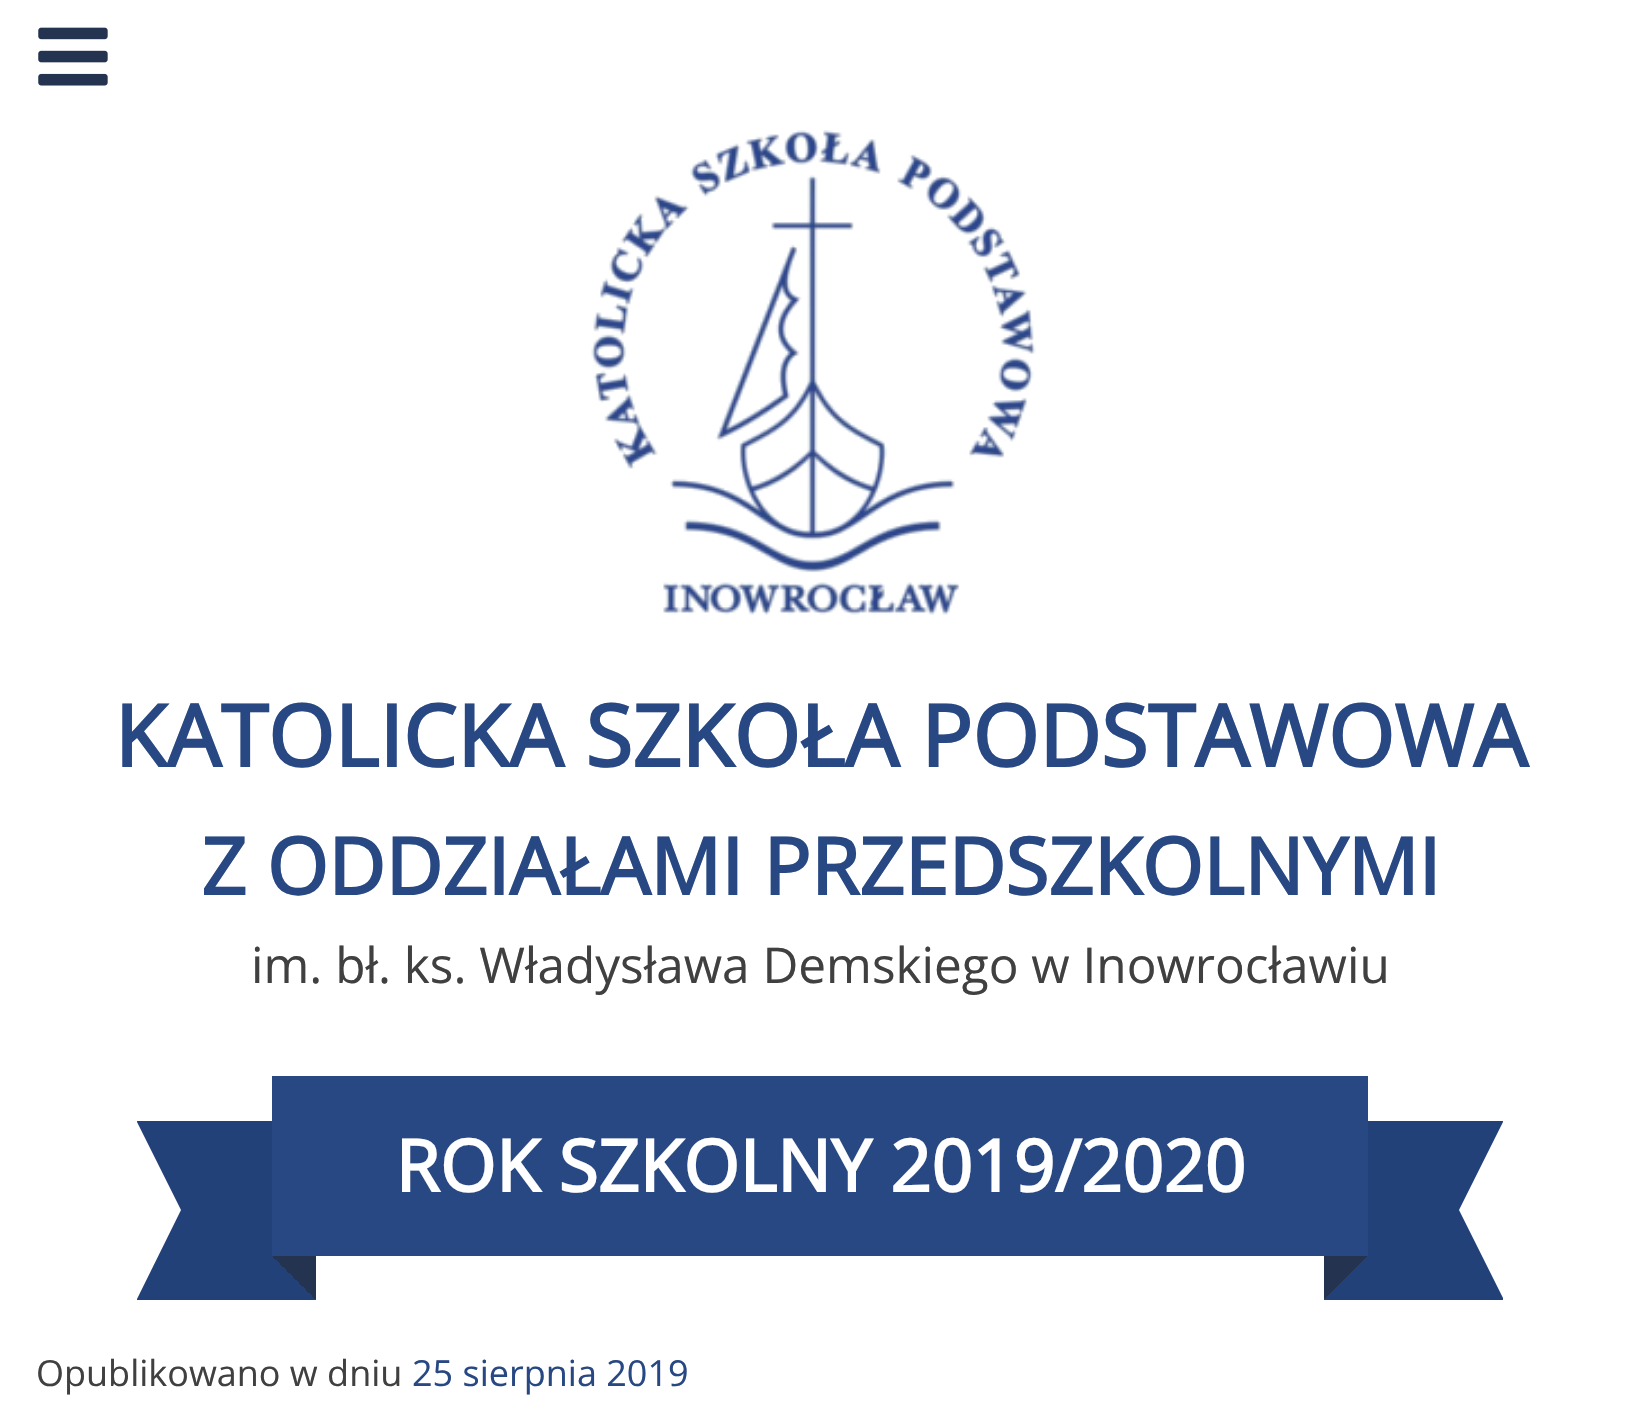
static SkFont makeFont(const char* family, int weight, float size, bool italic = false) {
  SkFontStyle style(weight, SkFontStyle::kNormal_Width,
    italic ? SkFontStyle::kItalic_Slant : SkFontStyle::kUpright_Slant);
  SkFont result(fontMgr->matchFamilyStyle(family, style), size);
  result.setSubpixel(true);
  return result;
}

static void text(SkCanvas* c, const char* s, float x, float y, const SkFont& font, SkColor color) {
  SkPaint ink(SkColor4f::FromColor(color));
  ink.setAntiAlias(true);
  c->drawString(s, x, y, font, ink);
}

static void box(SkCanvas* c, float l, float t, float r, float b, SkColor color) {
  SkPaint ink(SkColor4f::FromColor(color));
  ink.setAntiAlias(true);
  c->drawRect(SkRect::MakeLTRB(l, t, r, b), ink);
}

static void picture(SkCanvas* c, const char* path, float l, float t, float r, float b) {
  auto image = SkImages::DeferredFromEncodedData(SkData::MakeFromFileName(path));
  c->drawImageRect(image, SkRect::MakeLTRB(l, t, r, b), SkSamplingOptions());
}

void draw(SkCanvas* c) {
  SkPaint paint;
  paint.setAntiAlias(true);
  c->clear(0xffffffff);
  picture(c, "img_01.png", 38, 27, 108, 86);
  picture(c, "img_02.png", 591, 130, 1036, 615);
  SkFont face1 = makeFont("Open Sans", 700, 85.5f);
  text(c, "KATOLICKA SZKOŁA PODSTAWOWA", 114, 767, face1, 0xff284883);
  SkFont face2 = makeFont("Open Sans", 700, 78.75f);
  text(c, "Z ODDZIAŁAMI PRZEDSZKOLNYMI", 201, 895, face2, 0xff284883);
  SkFont face3 = makeFont("Open Sans", 400, 49.5f);
  text(c, "im. bł. ks. Władysława Demskiego w Inowrocławiu", 251, 983, face3, 0xff404040);
  paint.setColor(0xff234179);
  c->drawPath(SkPathBuilder().moveTo(137, 1121).lineTo(316, 1121).lineTo(316, 1300).lineTo(137, 1300).lineTo(137, 1299).lineTo(181, 1210).lineTo(137, 1122).close().detach(), paint);
  c->drawPath(SkPathBuilder().moveTo(1503, 1122).lineTo(1503, 1121).lineTo(1324, 1121).lineTo(1324, 1300).lineTo(1503, 1300).lineTo(1503, 1298).lineTo(1459, 1210).close().detach(), paint);
  box(c, 272, 1076, 1368, 1256, 0xff284883);
  {
    const SkColor colors[] = {0xff234179, 0xff233350};
    const float stops[] = {0.5f, 0.5f};
    const SkPoint ends[] = {{272, 1301}, {317, 1256}};
    paint.setShader(SkGradientShader::MakeLinear(ends, colors, stops, 2, SkTileMode::kClamp));
    paint.setAlpha(255);
  }
  c->drawRect(SkRect::MakeLTRB(272, 1256, 316, 1299), paint);
  SkFont face4 = makeFont("Open Sans", 700, 72);
  text(c, "ROK SZKOLNY 2019/2020", 395, 1192, face4, 0xffffffff);
  {
    const SkColor colors[] = {0xff234179, 0xff233350};
    const float stops[] = {0.5f, 0.5f};
    const SkPoint ends[] = {{1369, 1300}, {1324, 1255}};
    paint.setShader(SkGradientShader::MakeLinear(ends, colors, stops, 2, SkTileMode::kClamp));
    paint.setAlpha(255);
  }
  c->drawRect(SkRect::MakeLTRB(1324, 1256, 1368, 1300), paint);
  SkFont face5 = makeFont("Open Sans", 400, 36);
  text(c, "Opublikowano w dniu", 36, 1386, face5, 0xff404040);
  text(c, "25 sierpnia 2019", 412, 1386, face5, 0xff284883);
}
